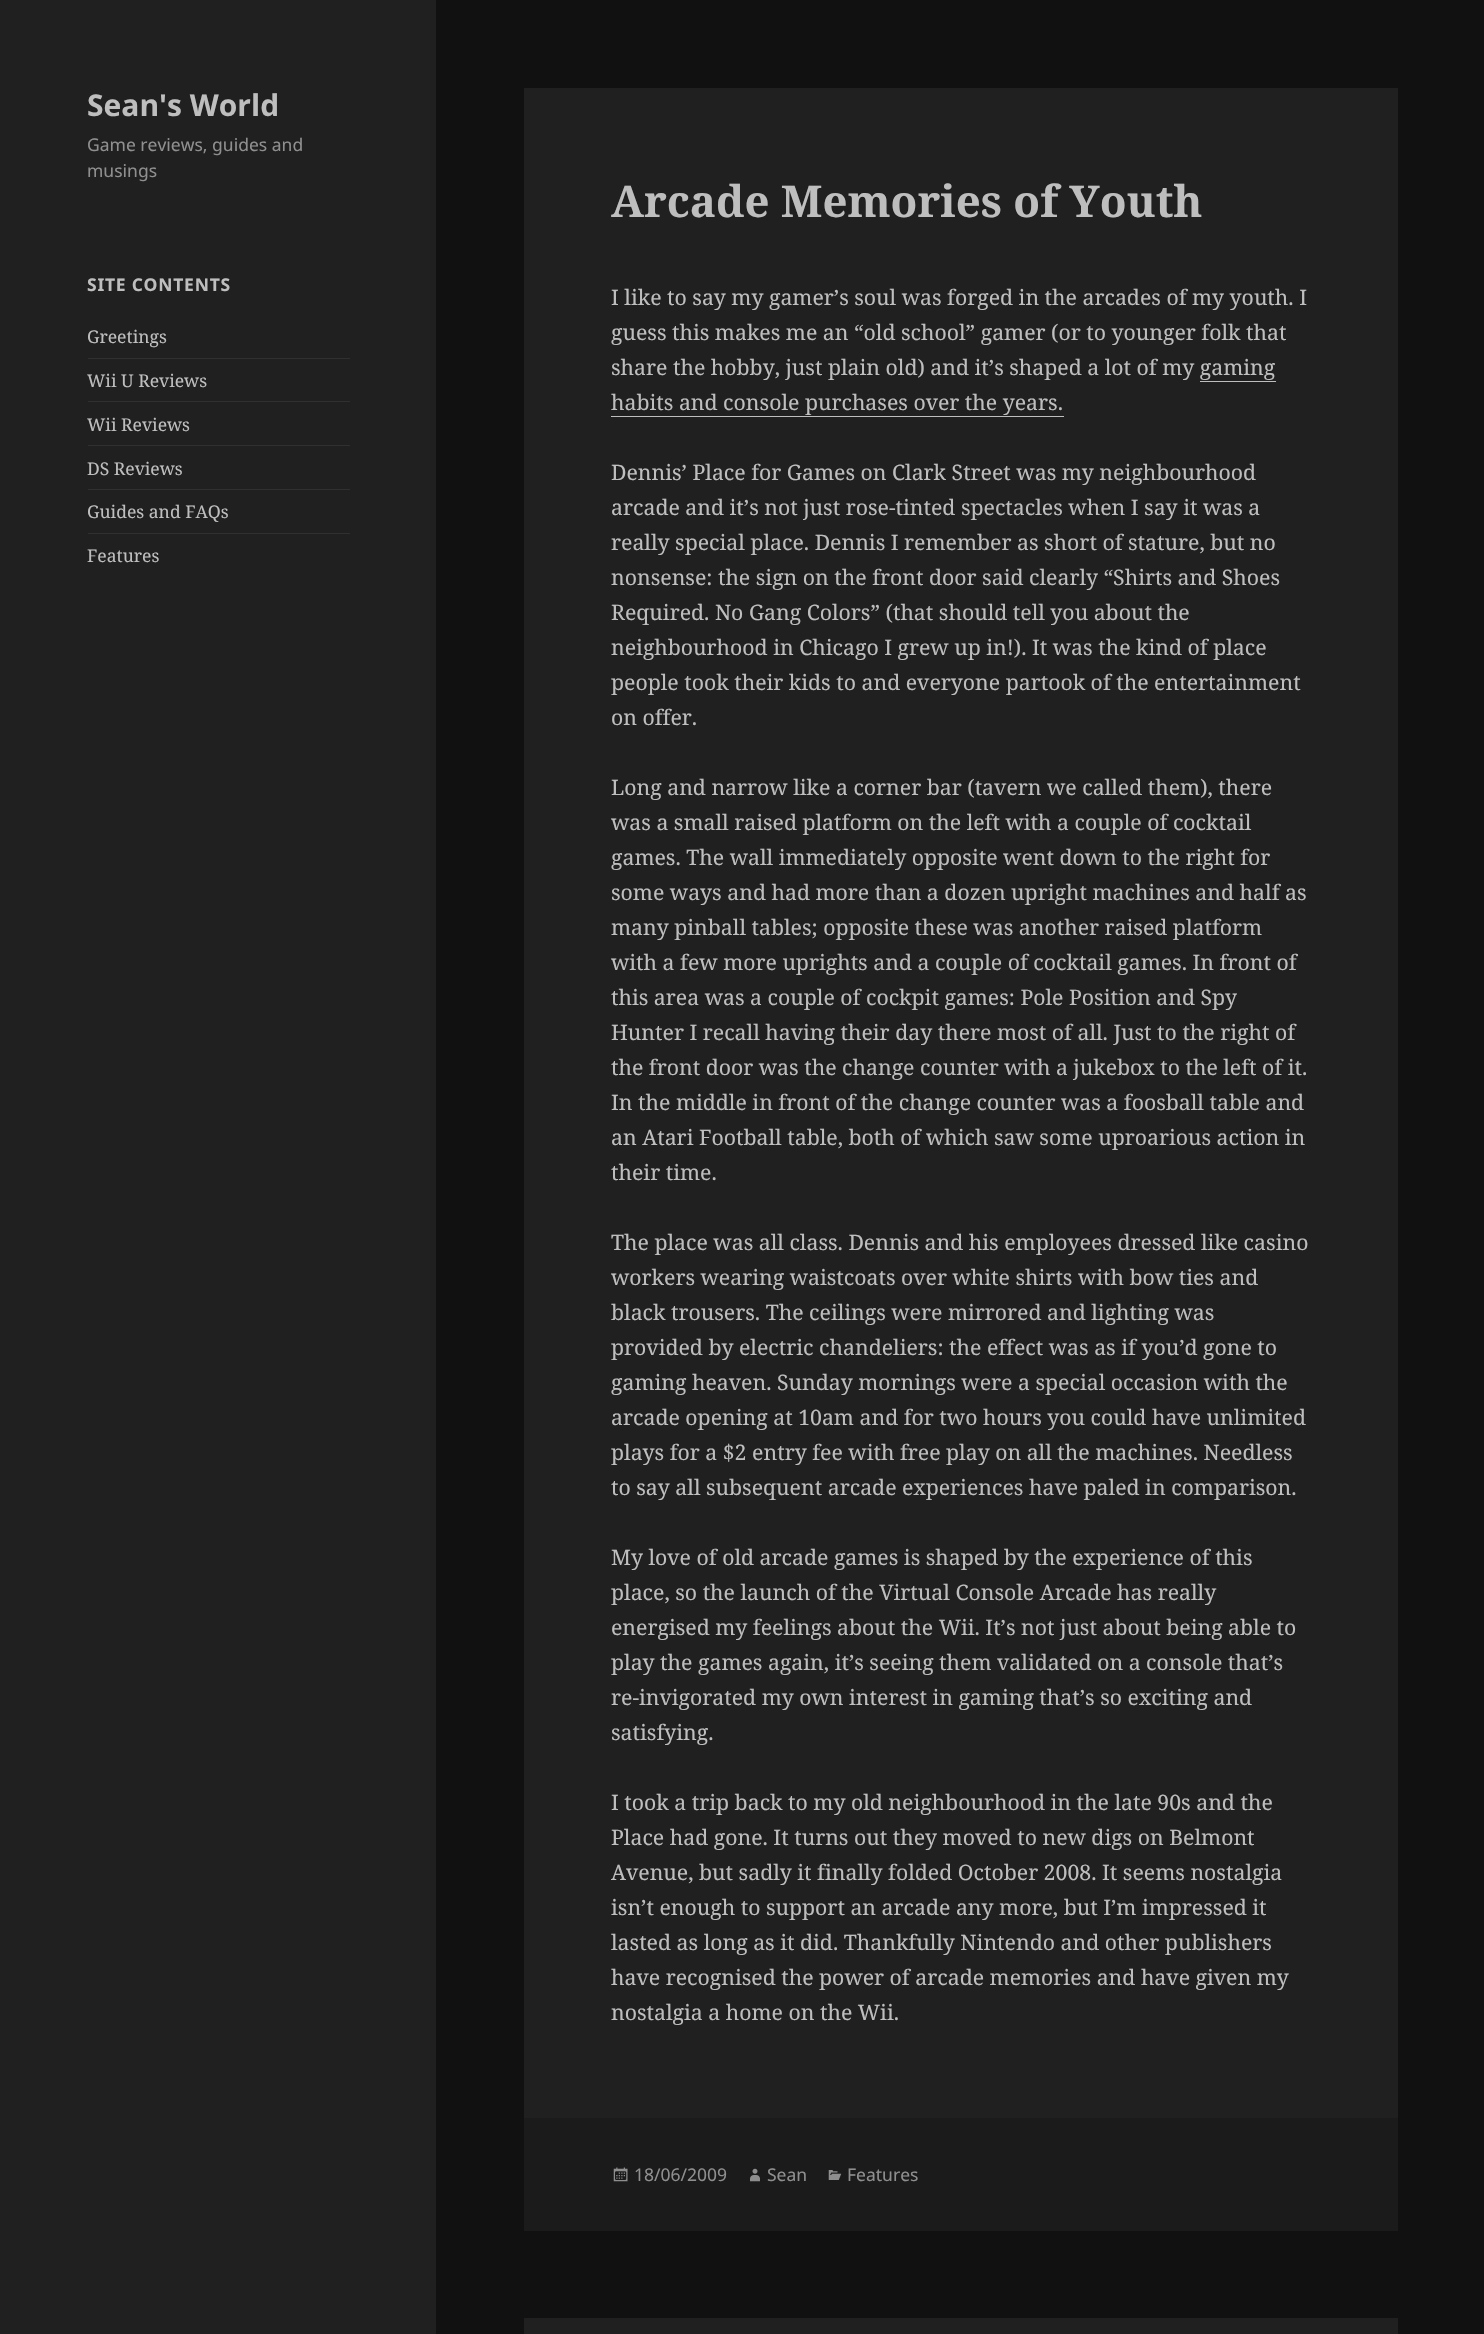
static SkFont makeFont(const char* family, int weight, float size, bool italic = false) {
  SkFontStyle style(weight, SkFontStyle::kNormal_Width,
    italic ? SkFontStyle::kItalic_Slant : SkFontStyle::kUpright_Slant);
  SkFont result(fontMgr->matchFamilyStyle(family, style), size);
  result.setSubpixel(true);
  return result;
}

static void text(SkCanvas* c, const char* s, float x, float y, const SkFont& font, SkColor color) {
  SkPaint ink(SkColor4f::FromColor(color));
  ink.setAntiAlias(true);
  c->drawString(s, x, y, font, ink);
}

static void spacedText(SkCanvas* c, const char* s, float x, float y, const SkFont& font, const SkPaint& ink, float letter, float word) {
  std::vector<SkGlyphID> glyphs(font.countText(s, strlen(s), SkTextEncoding::kUTF8));
  std::vector<float> xs(glyphs.size());
  font.textToGlyphs(s, strlen(s), SkTextEncoding::kUTF8, glyphs);
  font.getXPos(glyphs, xs, x);
  float extra = 0;
  for (size_t i = 0; i < glyphs.size(); i++) {
    xs[i] += extra;
    extra += letter + word * (glyphs[i] == font.unicharToGlyph(' '));
  }
  c->drawTextBlob(SkTextBlob::MakeFromPosHGlyphs(glyphs, xs, y, font), 0, 0, ink);
}

static void box(SkCanvas* c, float l, float t, float r, float b, SkColor color) {
  SkPaint ink(SkColor4f::FromColor(color));
  ink.setAntiAlias(true);
  c->drawRect(SkRect::MakeLTRB(l, t, r, b), ink);
}

static void picture(SkCanvas* c, const char* path, float l, float t, float r, float b) {
  auto image = SkImages::DeferredFromEncodedData(SkData::MakeFromFileName(path));
  c->drawImageRect(image, SkRect::MakeLTRB(l, t, r, b), SkSamplingOptions());
}

void draw(SkCanvas* c) {
  SkPaint paint;
  paint.setAntiAlias(true);
  c->clear(0xff111111);
  box(c, 0, 0, 436, 2334, 0xff202020);
  SkFont face1 = makeFont("Noto Sans", 700, 30);
  text(c, "Sean's World", 87, 116, face1, 0xffbebebe);
  SkFont face2 = makeFont("Noto Sans", 400, 17.5f);
  text(c, "Game reviews, guides and", 87, 151, face2, 0xff8f8f8f);
  text(c, "musings", 87, 177, face2, 0xff8f8f8f);
  SkFont face3 = makeFont("Noto Sans", 700, 17.5f);
  paint.setColor(0xffbebebe);
  spacedText(c, "SITE CONTENTS", 87, 291, face3, paint, 0.75f, 0);
  SkFont face4 = makeFont("Noto Serif", 400, 17.5f);
  text(c, "Greetings", 87, 343, face4, 0xffbebebe);
  box(c, 88, 358, 350, 359, 0xff303030);
  text(c, "Wii U Reviews", 87, 387, face4, 0xffbebebe);
  box(c, 88, 401, 350, 402, 0xff303030);
  text(c, "Wii Reviews", 87, 431, face4, 0xffbebebe);
  box(c, 88, 445, 350, 446, 0xff303030);
  text(c, "DS Reviews", 87, 475, face4, 0xffbebebe);
  box(c, 88, 489, 350, 490, 0xff303030);
  text(c, "Guides and FAQs", 87, 518, face4, 0xffbebebe);
  box(c, 88, 533, 350, 534, 0xff303030);
  text(c, "Features", 87, 562, face4, 0xffbebebe);
  box(c, 524, 88, 1398, 2118, 0xff202020);
  SkFont face5 = makeFont("Noto Serif", 700, 43.75f);
  text(c, "Arcade Memories of Youth", 611, 217, face5, 0xffbebebe);
  SkFont face6 = makeFont("Noto Serif", 400, 21.25f);
  text(c, "I like to say my gamer’s soul was forged in the arcades of my youth. I", 611, 305, face6, 0xffbebebe);
  text(c, "guess this makes me an “old school” gamer (or to younger folk that", 611, 340, face6, 0xffbebebe);
  text(c, "share the hobby, just plain old) and it’s shaped a lot of my gaming", 611, 375, face6, 0xffbebebe);
  text(c, "habits and console purchases over the years.", 611, 410, face6, 0xffbebebe);
  box(c, 1200, 381, 1276, 382, 0xffbebebe);
  box(c, 611, 416, 1064, 417, 0xffbebebe);
  text(c, "Dennis’ Place for Games on Clark Street was my neighbourhood", 611, 480, face6, 0xffbebebe);
  text(c, "arcade and it’s not just rose-tinted spectacles when I say it was a", 611, 515, face6, 0xffbebebe);
  text(c, "really special place. Dennis I remember as short of stature, but no", 611, 550, face6, 0xffbebebe);
  text(c, "nonsense: the sign on the front door said clearly “Shirts and Shoes", 611, 585, face6, 0xffbebebe);
  text(c, "Required. No Gang Colors” (that should tell you about the", 611, 620, face6, 0xffbebebe);
  text(c, "neighbourhood in Chicago I grew up in!). It was the kind of place", 611, 655, face6, 0xffbebebe);
  text(c, "people took their kids to and everyone partook of the entertainment", 611, 690, face6, 0xffbebebe);
  text(c, "on offer.", 611, 725, face6, 0xffbebebe);
  text(c, "Long and narrow like a corner bar (tavern we called them), there", 611, 795, face6, 0xffbebebe);
  text(c, "was a small raised platform on the left with a couple of cocktail", 611, 830, face6, 0xffbebebe);
  text(c, "games. The wall immediately opposite went down to the right for", 611, 865, face6, 0xffbebebe);
  text(c, "some ways and had more than a dozen upright machines and half as", 611, 900, face6, 0xffbebebe);
  text(c, "many pinball tables; opposite these was another raised platform", 611, 935, face6, 0xffbebebe);
  text(c, "with a few more uprights and a couple of cocktail games. In front of", 611, 970, face6, 0xffbebebe);
  text(c, "this area was a couple of cockpit games: Pole Position and Spy", 611, 1005, face6, 0xffbebebe);
  text(c, "Hunter I recall having their day there most of all. Just to the right of", 611, 1040, face6, 0xffbebebe);
  text(c, "the front door was the change counter with a jukebox to the left of it.", 611, 1075, face6, 0xffbebebe);
  text(c, "In the middle in front of the change counter was a foosball table and", 611, 1110, face6, 0xffbebebe);
  text(c, "an Atari Football table, both of which saw some uproarious action in", 611, 1145, face6, 0xffbebebe);
  text(c, "their time.", 611, 1180, face6, 0xffbebebe);
  text(c, "The place was all class. Dennis and his employees dressed like casino", 611, 1250, face6, 0xffbebebe);
  text(c, "workers wearing waistcoats over white shirts with bow ties and", 611, 1285, face6, 0xffbebebe);
  text(c, "black trousers. The ceilings were mirrored and lighting was", 611, 1320, face6, 0xffbebebe);
  text(c, "provided by electric chandeliers: the effect was as if you’d gone to", 611, 1355, face6, 0xffbebebe);
  text(c, "gaming heaven. Sunday mornings were a special occasion with the", 611, 1390, face6, 0xffbebebe);
  text(c, "arcade opening at 10am and for two hours you could have unlimited", 611, 1425, face6, 0xffbebebe);
  text(c, "plays for a $2 entry fee with free play on all the machines. Needless", 611, 1460, face6, 0xffbebebe);
  text(c, "to say all subsequent arcade experiences have paled in comparison.", 611, 1495, face6, 0xffbebebe);
  text(c, "My love of old arcade games is shaped by the experience of this", 611, 1565, face6, 0xffbebebe);
  text(c, "place, so the launch of the Virtual Console Arcade has really", 611, 1600, face6, 0xffbebebe);
  text(c, "energised my feelings about the Wii. It’s not just about being able to", 611, 1635, face6, 0xffbebebe);
  text(c, "play the games again, it’s seeing them validated on a console that’s", 611, 1670, face6, 0xffbebebe);
  text(c, "re-invigorated my own interest in gaming that’s so exciting and", 611, 1705, face6, 0xffbebebe);
  text(c, "satisfying.", 611, 1740, face6, 0xffbebebe);
  text(c, "I took a trip back to my old neighbourhood in the late 90s and the", 611, 1810, face6, 0xffbebebe);
  text(c, "Place had gone. It turns out they moved to new digs on Belmont", 611, 1845, face6, 0xffbebebe);
  text(c, "Avenue, but sadly it finally folded October 2008. It seems nostalgia", 611, 1880, face6, 0xffbebebe);
  text(c, "isn’t enough to support an arcade any more, but I’m impressed it", 611, 1915, face6, 0xffbebebe);
  text(c, "lasted as long as it did. Thankfully Nintendo and other publishers", 611, 1950, face6, 0xffbebebe);
  text(c, "have recognised the power of arcade memories and have given my", 611, 1985, face6, 0xffbebebe);
  text(c, "nostalgia a home on the Wii.", 611, 2020, face6, 0xffbebebe);
  box(c, 524, 2118, 1398, 2231, 0xff1b1b1b);
  picture(c, "img_01.png", 613, 2167, 628, 2182);
  text(c, "18/06/2009", 634, 2181, face2, 0xff8f8f8f);
  picture(c, "img_02.png", 750, 2168, 760, 2182);
  text(c, "Sean", 767, 2181, face2, 0xff8f8f8f);
  picture(c, "img_03.png", 828, 2170, 842, 2180);
  text(c, "Features", 847, 2181, face2, 0xff8f8f8f);
  box(c, 524, 2318, 1398, 2334, 0xff202020);
}
